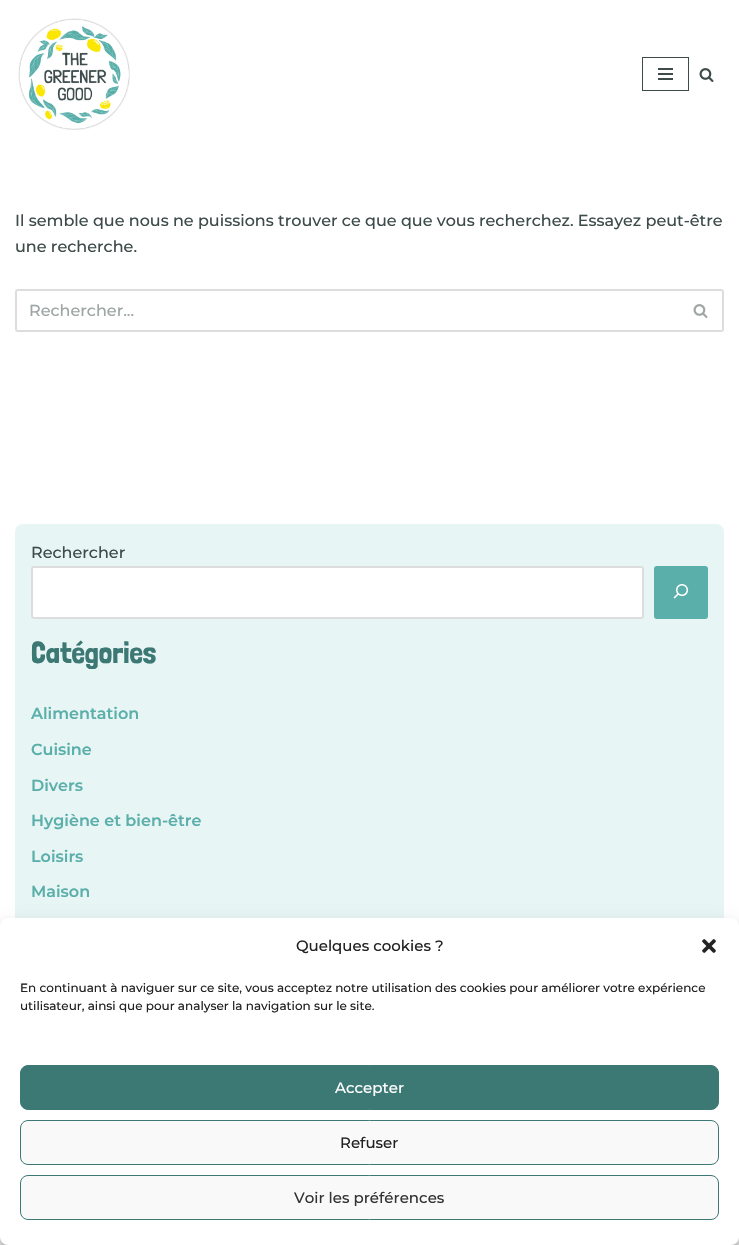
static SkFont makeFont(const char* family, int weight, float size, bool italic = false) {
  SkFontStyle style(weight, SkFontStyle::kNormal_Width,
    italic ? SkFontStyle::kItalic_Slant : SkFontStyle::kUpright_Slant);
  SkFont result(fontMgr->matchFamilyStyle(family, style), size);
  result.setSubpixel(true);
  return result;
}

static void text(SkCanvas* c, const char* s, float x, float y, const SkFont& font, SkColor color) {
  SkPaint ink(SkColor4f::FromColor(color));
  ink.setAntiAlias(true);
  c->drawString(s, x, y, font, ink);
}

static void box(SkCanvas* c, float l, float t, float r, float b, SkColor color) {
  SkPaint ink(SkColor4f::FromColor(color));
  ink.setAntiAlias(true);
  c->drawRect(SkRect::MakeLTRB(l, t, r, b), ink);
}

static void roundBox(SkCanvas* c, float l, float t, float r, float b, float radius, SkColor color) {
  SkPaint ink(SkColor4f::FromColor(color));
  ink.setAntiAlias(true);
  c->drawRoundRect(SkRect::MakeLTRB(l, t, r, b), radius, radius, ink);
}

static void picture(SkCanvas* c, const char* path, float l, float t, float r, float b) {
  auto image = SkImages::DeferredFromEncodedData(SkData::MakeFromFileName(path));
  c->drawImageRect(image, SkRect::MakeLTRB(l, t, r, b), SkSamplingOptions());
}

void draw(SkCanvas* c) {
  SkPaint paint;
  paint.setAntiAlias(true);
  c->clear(0xffffffff);
  picture(c, "img_01.png", 18, 18, 130, 130);
  paint.setStyle(SkPaint::kStroke_Style);
  paint.setStrokeWidth(1);
  paint.setColor(0xff3d4b4a);
  c->drawRect(SkRect::MakeLTRB(642.5f, 57.5f, 688.5f, 90.5f), paint);
  box(c, 658, 68, 673, 70, 0xff3d4b4a);
  box(c, 658, 73, 673, 75, 0xff3d4b4a);
  box(c, 658, 78, 673, 80, 0xff3d4b4a);
  picture(c, "img_02.png", 699, 68, 714, 82);
  SkFont face1 = makeFont("Montserrat", 500, 16);
  text(c, "Il semble que nous ne puissions trouver ce que que vous recherchez. Essayez peut-être", 15, 226, face1, 0xff3d4b4a);
  text(c, "une recherche.", 15, 252, face1, 0xff3d4b4a);
  paint.setStyle(SkPaint::kFill_Style);
  paint.setColor(0xffdddddd);
  c->drawPath(SkPathBuilder(SkPathFillType::kEvenOdd).moveTo(18, 289).lineTo(679, 289).lineTo(679, 332).lineTo(18, 332).cubicTo(16, 332, 15, 331, 15, 329).lineTo(15, 292).cubicTo(15, 290, 16, 289, 18, 289).close().moveTo(18, 291).lineTo(679, 291).lineTo(679, 330).lineTo(18, 330).cubicTo(17, 330, 17, 330, 17, 329).lineTo(17, 292).cubicTo(17, 291, 17, 291, 18, 291).close().detach(), paint);
  text(c, "Rechercher...", 29, 316, face1, 0xff9ea5a5);
  c->drawPath(SkPathBuilder(SkPathFillType::kEvenOdd).moveTo(679, 289).lineTo(721, 289).cubicTo(723, 289, 724, 290, 724, 292).lineTo(724, 329).cubicTo(724, 331, 723, 332, 721, 332).lineTo(679, 332).close().moveTo(679, 291).lineTo(721, 291).cubicTo(722, 291, 722, 291, 722, 292).lineTo(722, 329).cubicTo(722, 330, 722, 330, 721, 330).lineTo(679, 330).close().detach(), paint);
  picture(c, "img_03.png", 693, 304, 708, 318);
  roundBox(c, 15, 524, 724, 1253, 8, 0xffe8f5f5);
  text(c, "Rechercher", 31, 558, face1, 0xff3d4b4a);
  paint.setColor(0xffffffff);
  c->drawRoundRect(SkRect::MakeLTRB(32, 567, 643, 618), 2, 2, paint);
  paint.setStyle(SkPaint::kStroke_Style);
  paint.setStrokeWidth(2);
  paint.setColor(0xffdddddd);
  c->drawRoundRect(SkRect::MakeLTRB(32, 567, 643, 618), 2, 2, paint);
  roundBox(c, 654, 566, 708, 619, 3, 0xff5aafaa);
  picture(c, "img_04.png", 673, 584, 689, 599);
  SkFont face2 = makeFont("Londrina Solid", 400, 30);
  text(c, "Catégories", 31, 663, face2, 0xff3c7874);
  SkFont face3 = makeFont("Montserrat", 600, 16);
  text(c, "Alimentation", 31, 719, face3, 0xff5aafaa);
  text(c, "Cuisine", 31, 755, face3, 0xff5aafaa);
  text(c, "Divers", 31, 791, face3, 0xff5aafaa);
  text(c, "Hygiène et bien-être", 31, 826, face3, 0xff5aafaa);
  text(c, "Loisirs", 31, 862, face3, 0xff5aafaa);
  text(c, "Maison", 31, 897, face3, 0xff5aafaa);
  paint.setStyle(SkPaint::kFill_Style);
  paint.setColor(0x3b000000);
  paint.setMaskFilter(SkMaskFilter::MakeBlur(kNormal_SkBlurStyle, 3));
  c->drawRoundRect(SkRect::MakeLTRB(0, 924, 739, 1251), 8, 8, paint);
  paint.setMaskFilter(nullptr);
  paint.setColor(0x30000000);
  paint.setMaskFilter(SkMaskFilter::MakeBlur(kNormal_SkBlurStyle, 10));
  c->drawRoundRect(SkRect::MakeLTRB(0, 928, 739, 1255), 8, 8, paint);
  paint.setMaskFilter(nullptr);
  roundBox(c, 0, 918, 739, 1245, 8, 0xffffffff);
  SkFont face4 = makeFont("Montserrat", 500, 15);
  text(c, "Quelques cookies ?", 296, 951, face4, 0xff222222);
  picture(c, "img_05.png", 702, 939, 716, 953);
  SkFont face5 = makeFont("Montserrat", 500, 12);
  text(c, "En continuant à naviguer sur ce site, vous acceptez notre utilisation des cookies pour améliorer votre expérience", 20, 992, face5, 0xff222222);
  text(c, "utilisateur, ainsi que pour analyser la navigation sur le site.", 20, 1010, face5, 0xff222222);
  paint.setColor(0xff3c7874);
  c->drawRoundRect(SkRect::MakeLTRB(20.5f, 1065.5f, 718.5f, 1109.5f), 7.5f, 7.5f, paint);
  paint.setStyle(SkPaint::kStroke_Style);
  paint.setStrokeWidth(1);
  c->drawRoundRect(SkRect::MakeLTRB(20.5f, 1065.5f, 718.5f, 1109.5f), 7.5f, 7.5f, paint);
  text(c, "Accepter", 335, 1093, face4, 0xffffffff);
  paint.setStyle(SkPaint::kFill_Style);
  paint.setColor(0xfff9f9f9);
  c->drawRoundRect(SkRect::MakeLTRB(20.5f, 1120.5f, 718.5f, 1164.5f), 7.5f, 7.5f, paint);
  paint.setStyle(SkPaint::kStroke_Style);
  paint.setColor(0xff3c7874);
  c->drawRoundRect(SkRect::MakeLTRB(20.5f, 1120.5f, 718.5f, 1164.5f), 7.5f, 7.5f, paint);
  text(c, "Refuser", 340, 1148, face4, 0xff222222);
  paint.setStyle(SkPaint::kFill_Style);
  paint.setColor(0xfff9f9f9);
  c->drawRoundRect(SkRect::MakeLTRB(20.5f, 1175.5f, 718.5f, 1219.5f), 7.5f, 7.5f, paint);
  paint.setStyle(SkPaint::kStroke_Style);
  paint.setColor(0xff3c7874);
  c->drawRoundRect(SkRect::MakeLTRB(20.5f, 1175.5f, 718.5f, 1219.5f), 7.5f, 7.5f, paint);
  text(c, "Voir les préférences", 294, 1203, face4, 0xff333333);
}
